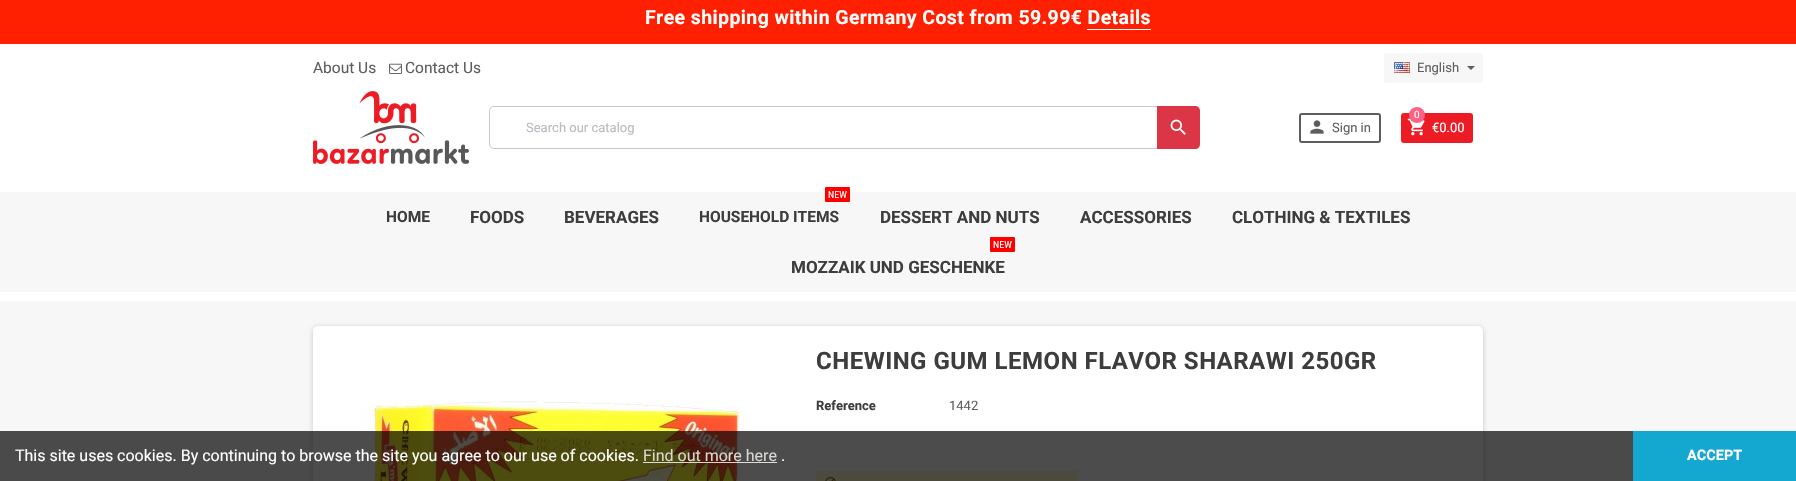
static SkFont makeFont(const char* family, int weight, float size, bool italic = false) {
  SkFontStyle style(weight, SkFontStyle::kNormal_Width,
    italic ? SkFontStyle::kItalic_Slant : SkFontStyle::kUpright_Slant);
  SkFont result(fontMgr->matchFamilyStyle(family, style), size);
  result.setSubpixel(true);
  return result;
}

static void text(SkCanvas* c, const char* s, float x, float y, const SkFont& font, SkColor color) {
  SkPaint ink(SkColor4f::FromColor(color));
  ink.setAntiAlias(true);
  c->drawString(s, x, y, font, ink);
}

static void spacedText(SkCanvas* c, const char* s, float x, float y, const SkFont& font, const SkPaint& ink, float letter, float word) {
  std::vector<SkGlyphID> glyphs(font.countText(s, strlen(s), SkTextEncoding::kUTF8));
  std::vector<float> xs(glyphs.size());
  font.textToGlyphs(s, strlen(s), SkTextEncoding::kUTF8, glyphs);
  font.getXPos(glyphs, xs, x);
  float extra = 0;
  for (size_t i = 0; i < glyphs.size(); i++) {
    xs[i] += extra;
    extra += letter + word * (glyphs[i] == font.unicharToGlyph(' '));
  }
  c->drawTextBlob(SkTextBlob::MakeFromPosHGlyphs(glyphs, xs, y, font), 0, 0, ink);
}

static void box(SkCanvas* c, float l, float t, float r, float b, SkColor color) {
  SkPaint ink(SkColor4f::FromColor(color));
  ink.setAntiAlias(true);
  c->drawRect(SkRect::MakeLTRB(l, t, r, b), ink);
}

static void roundBox(SkCanvas* c, float l, float t, float r, float b, float radius, SkColor color) {
  SkPaint ink(SkColor4f::FromColor(color));
  ink.setAntiAlias(true);
  c->drawRoundRect(SkRect::MakeLTRB(l, t, r, b), radius, radius, ink);
}

static void picture(SkCanvas* c, const char* path, float l, float t, float r, float b) {
  auto image = SkImages::DeferredFromEncodedData(SkData::MakeFromFileName(path));
  c->drawImageRect(image, SkRect::MakeLTRB(l, t, r, b), SkSamplingOptions());
}

void draw(SkCanvas* c) {
  SkPaint paint;
  paint.setAntiAlias(true);
  c->clear(0xffffffff);
  box(c, 0, 0, 1796, 44, 0xfffe2000);
  SkFont face1 = makeFont("Roboto", 700, 19.5f);
  paint.setColor(0xffffffff);
  spacedText(c, "Free shipping within Germany Cost from 59.99€ Details", 645, 24, face1, paint, 0.4f, 0);
  box(c, 1087, 29, 1151, 30, 0xffffffff);
  SkFont face2 = makeFont("Roboto", 400, 15.5f);
  text(c, "About Us", 313, 73, face2, 0xff5d5d5d);
  picture(c, "img_01.png", 389, 63, 402, 74);
  text(c, "Contact Us", 405, 73, face2, 0xff5d5d5d);
  roundBox(c, 1384, 53, 1483, 83, 3, 0xfff7f7f7);
  picture(c, "img_02.png", 1394, 62, 1410, 73);
  SkFont face3 = makeFont("Roboto", 400, 13);
  text(c, "English", 1417, 72, face3, 0xff5d5d5d);
  paint.setColor(0xff5d5d5d);
  c->drawPath(SkPathBuilder().moveTo(1467, 66).lineTo(1475, 66).lineTo(1471, 70).close().detach(), paint);
  picture(c, "img_03.png", 313, 91, 469, 164);
  paint.setStyle(SkPaint::kStroke_Style);
  paint.setStrokeWidth(1);
  paint.setColor(0xffc7c7c7);
  c->drawRoundRect(SkRect::MakeLTRB(489.5f, 106.5f, 1199.5f, 148.5f), 4.5f, 4.5f, paint);
  text(c, "Search our catalog", 526, 132, face3, 0xffb6babe);
  paint.setStyle(SkPaint::kFill_Style);
  paint.setColor(0xffdc3545);
  c->drawPath(SkPathBuilder().moveTo(1157, 106).lineTo(1195, 106).cubicTo(1198, 106, 1200, 108, 1200, 111).lineTo(1200, 144).cubicTo(1200, 147, 1198, 149, 1195, 149).lineTo(1157, 149).close().detach(), paint);
  picture(c, "img_04.png", 1170, 119, 1186, 135);
  paint.setStyle(SkPaint::kStroke_Style);
  paint.setStrokeWidth(2);
  paint.setColor(0xff5d5d5d);
  c->drawRoundRect(SkRect::MakeLTRB(1300, 114, 1380, 142), 2, 2, paint);
  picture(c, "img_05.png", 1310, 120, 1324, 134);
  text(c, "Sign in", 1332, 132, face3, 0xff5d5d5d);
  roundBox(c, 1401, 113, 1473, 143, 3, 0xffed1c24);
  picture(c, "img_06.png", 1407, 118, 1425, 136);
  paint.setStyle(SkPaint::kFill_Style);
  paint.setColor(0xfffd6282);
  c->drawCircle(1417, 115, 8, paint);
  SkFont face4 = makeFont("Roboto", 400, 10);
  text(c, "0", 1414, 118, face4, 0xffffffff);
  text(c, "€0.00", 1432, 132, face3, 0xffffffff);
  box(c, 0, 192, 1796, 292, 0xfff7f7f7);
  SkFont face5 = makeFont("Roboto", 700, 15.5f);
  text(c, "HOME", 386, 222, face5, 0xff3d3d3d);
  SkFont face6 = makeFont("Roboto", 700, 17);
  text(c, "FOODS", 470, 223, face6, 0xff3d3d3d);
  text(c, "BEVERAGES", 564, 223, face6, 0xff3d3d3d);
  roundBox(c, 825, 187, 850, 202, 1, 0xffff0000);
  SkFont face7 = makeFont("Roboto Condensed", 400, 10);
  text(c, "NEW", 828, 198, face7, 0xffffffff);
  text(c, "HOUSEHOLD ITEMS", 699, 222, face5, 0xff3d3d3d);
  text(c, "DESSERT AND NUTS", 880, 223, face6, 0xff3d3d3d);
  text(c, "ACCESSORIES", 1080, 223, face6, 0xff3d3d3d);
  text(c, "CLOTHING & TEXTILES", 1232, 223, face6, 0xff3d3d3d);
  roundBox(c, 990, 237, 1015, 252, 1, 0xffff0000);
  text(c, "NEW", 993, 248, face7, 0xffffffff);
  text(c, "MOZZAIK UND GESCHENKE", 791, 273, face6, 0xff3d3d3d);
  box(c, 0, 301, 1796, 481, 0xfff7f7f7);
  paint.setColor(0x33000000);
  paint.setMaskFilter(SkMaskFilter::MakeBlur(kNormal_SkBlurStyle, 2.5f));
  c->drawRoundRect(SkRect::MakeLTRB(313, 327, 1483, 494), 5, 5, paint);
  paint.setMaskFilter(nullptr);
  roundBox(c, 313, 326, 1483, 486, 5, 0xffffffff);
  SkFont face8 = makeFont("Roboto", 700, 24);
  paint.setColor(0xff3d3d3d);
  spacedText(c, "CHEWING GUM LEMON FLAVOR SHARAWI 250GR", 816, 369, face8, paint, 0.5f, 0);
  SkFont face9 = makeFont("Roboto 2", 700, 13);
  text(c, "Reference", 816, 410, face9, 0xff3d3d3d);
  text(c, "1442", 949, 410, face3, 0xff5d5d5d);
  box(c, 816, 471, 1078, 481, 0xfffff3cd);
  picture(c, "img_07.png", 825, 477, 836, 481);
  picture(c, "img_08.png", 361, 401, 745, 481);
  box(c, 0, 431, 1633, 481, 0xb3000000);
  SkFont face10 = makeFont("Roboto", 400, 16);
  text(c, "This site uses cookies. By continuing to browse the site you agree to our use of cookies.", 15, 461, face10, 0xffffffff);
  text(c, "Find out more here", 643, 461, face10, 0xffdbd8d3);
  box(c, 643, 462, 777, 463, 0xccffffff);
  text(c, ".", 781, 461, face10, 0xffffffff);
  box(c, 1633, 431, 1796, 481, 0xff14a7d0);
  SkFont face11 = makeFont("Roboto 2", 700, 14.5f);
  text(c, "ACCEPT", 1687, 460, face11, 0xffffffff);
}
